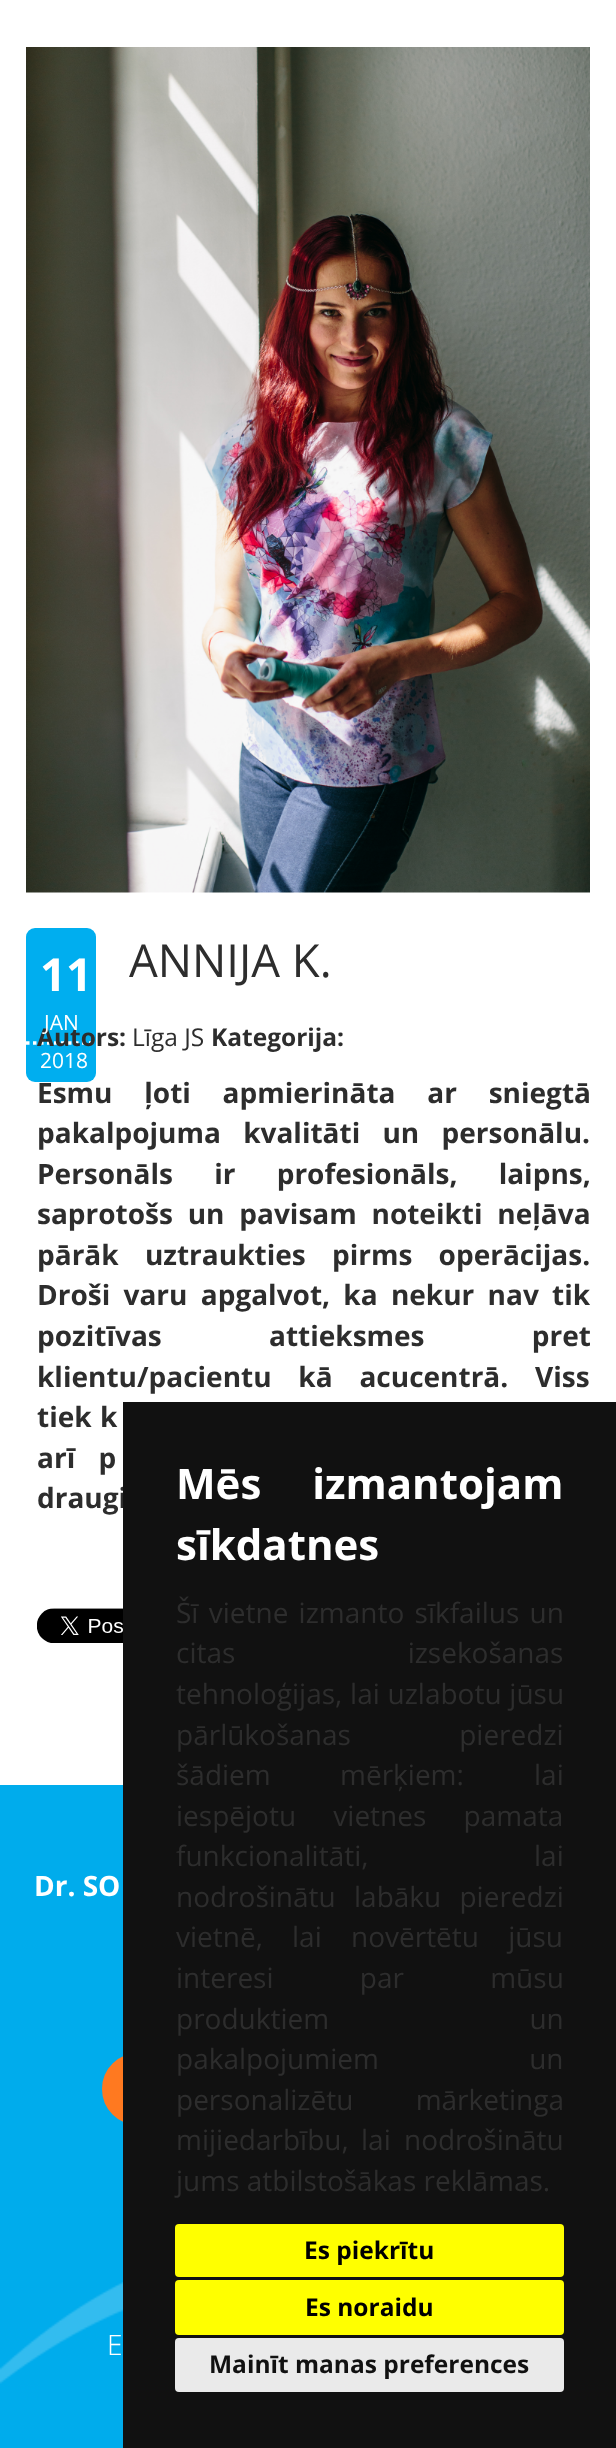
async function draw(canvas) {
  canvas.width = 616;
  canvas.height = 2448;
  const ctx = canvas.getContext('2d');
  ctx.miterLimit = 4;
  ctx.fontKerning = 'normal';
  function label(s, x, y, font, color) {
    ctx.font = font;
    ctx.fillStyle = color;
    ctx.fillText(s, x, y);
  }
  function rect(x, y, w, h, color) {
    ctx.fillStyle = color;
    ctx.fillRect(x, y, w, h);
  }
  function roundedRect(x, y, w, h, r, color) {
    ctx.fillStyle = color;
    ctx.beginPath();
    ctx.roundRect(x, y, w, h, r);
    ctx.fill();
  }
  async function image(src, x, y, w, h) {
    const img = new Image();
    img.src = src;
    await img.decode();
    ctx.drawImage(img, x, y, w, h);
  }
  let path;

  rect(0, 0, 616, 2448, '#fff');
  await image('assets/img1.png', 26, 47, 564, 846);
  label('ANNIJA K.', 129, 977, '45.5px Open Sans', '#2d2d2d');
  roundedRect(26, 928, 70, 154, 9, '#00aeef');
  ctx.save();
  ctx.beginPath();
  ctx.roundRect(26, 928, 70, 154, 9);
  ctx.clip();
  path = new Path2D('M26 1043H110');
  ctx.strokeStyle = '#fff';
  ctx.lineWidth = 3.5;
  ctx.setLineDash([3.5, 3.5]);
  ctx.stroke(path);
  ctx.restore();
  label('Autors:', 37, 1046, 'bold 24.5px Open Sans', '#2d2d2d');
  label('Līga JS', 132, 1046, '24.5px Open Sans', '#2d2d2d');
  label('Kategorija:', 211, 1046, 'bold 24.5px Open Sans', '#2d2d2d');
  ctx.wordSpacing = '24.5px';
  label('Esmu ļoti apmierināta ar sniegtā', 37, 1103, 'bold 28px Open Sans', '#2d2d2d');
  ctx.wordSpacing = '15px';
  label('pakalpojuma kvalitāti un personālu.', 37, 1143, 'bold 28px Open Sans', '#2d2d2d');
  ctx.wordSpacing = '34px';
  label('Personāls ir profesionāls, laipns,', 37, 1184, 'bold 28px Open Sans', '#2d2d2d');
  ctx.wordSpacing = '7.5px';
  label('saprotošs un pavisam noteikti neļāva', 37, 1224, 'bold 28px Open Sans', '#2d2d2d');
  ctx.wordSpacing = '19px';
  label('pārāk uztraukties pirms operācijas.', 37, 1265, 'bold 28px Open Sans', '#2d2d2d');
  ctx.wordSpacing = '6px';
  label('Droši varu apgalvot, ka nekur nav tik', 37, 1305, 'bold 28px Open Sans', '#2d2d2d');
  ctx.wordSpacing = '100px';
  label('pozitīvas attieksmes pret', 37, 1346, 'bold 28px Open Sans', '#2d2d2d');
  ctx.wordSpacing = '19.5px';
  label('klientu/pacientu kā acucentrā. Viss', 37, 1387, 'bold 28px Open Sans', '#2d2d2d');
  ctx.wordSpacing = '1px';
  label('tiek k', 37, 1427, 'bold 28px Open Sans', '#2d2d2d');
  ctx.wordSpacing = '16px';
  label('arī p', 37, 1468, 'bold 28px Open Sans', '#2d2d2d');
  ctx.wordSpacing = '0px';
  label('draugi', 37, 1508, 'bold 28px Open Sans', '#2d2d2d');
  await image('assets/img2.png', 37, 1608, 86, 35);
  label('11', 40, 991, 'bold 45.5px Open Sans', '#fff');
  label('JAN', 44, 1030, '21px Open Sans', '#fff');
  label('2018', 40, 1068, '21px Open Sans', '#fff');
  rect(0, 1785, 123, 663, '#00acec');
  await image('assets/img3.png', 0, 2282, 123, 102);
  label('Dr. SO', 34, 1896, 'bold 28px Open Sans', '#fff');
  ctx.fillStyle = '#ff7920';
  ctx.beginPath();
  ctx.roundRect(104, 2055, 409, 68, 34);
  ctx.fill();
  ctx.strokeStyle = '#ff7920';
  ctx.lineWidth = 4;
  ctx.stroke();
  label('E', 107, 2355, '300 28px Open Sans', '#fff');
  rect(123, 1402, 493, 1046, '#111');
  ctx.wordSpacing = '40px';
  label('Mēs izmantojam', 176, 1499, 'bold 42px Open Sans', '#fff');
  ctx.wordSpacing = '0px';
  label('sīkdatnes', 176, 1560, 'bold 42px Open Sans', '#fff');
  ctx.wordSpacing = '3px';
  label('Šī vietne izmanto sīkfailus un', 176, 1623, '28px Open Sans', '#2d2d2d');
  ctx.wordSpacing = '165px';
  label('citas izsekošanas', 176, 1663, '28px Open Sans', '#2d2d2d');
  ctx.wordSpacing = '0.5px';
  label('tehnoloģijas, lai uzlabotu jūsu', 176, 1704, '28px Open Sans', '#2d2d2d');
  ctx.wordSpacing = '101px';
  label('pārlūkošanas pieredzi', 176, 1745, '28px Open Sans', '#2d2d2d');
  ctx.wordSpacing = '62px';
  label('šādiem mērķiem:', 176, 1785, '28px Open Sans', '#2d2d2d');
  ctx.wordSpacing = '0px';
  label('lai', 534, 1785, '28px Open Sans', '#2d2d2d');
  ctx.wordSpacing = '30px';
  label('iespējotu vietnes pamata', 176, 1826, '28px Open Sans', '#2d2d2d');
  ctx.wordSpacing = '0px';
  label('funkcionalitāti,', 176, 1866, '28px Open Sans', '#2d2d2d');
  label('lai', 534, 1866, '28px Open Sans', '#2d2d2d');
  ctx.wordSpacing = '11px';
  label('nodrošinātu labāku pieredzi', 176, 1907, '28px Open Sans', '#2d2d2d');
  ctx.wordSpacing = '0px';
  label('vietnē,', 176, 1947, '28px Open Sans', '#2d2d2d');
  ctx.wordSpacing = '22px';
  label('lai novērtētu jūsu', 292, 1947, '28px Open Sans', '#2d2d2d');
  ctx.wordSpacing = '79px';
  label('interesi par mūsu', 176, 1988, '28px Open Sans', '#2d2d2d');
  ctx.wordSpacing = '193px';
  label('produktiem un', 176, 2029, '28px Open Sans', '#2d2d2d');
  ctx.wordSpacing = '143px';
  label('pakalpojumiem un', 176, 2069, '28px Open Sans', '#2d2d2d');
  ctx.wordSpacing = '55px';
  label('personalizētu mārketinga', 176, 2110, '28px Open Sans', '#2d2d2d');
  ctx.wordSpacing = '0px';
  label('mijiedarbību,', 176, 2150, '28px Open Sans', '#2d2d2d');
  ctx.wordSpacing = '6px';
  label('lai nodrošinātu', 361, 2150, '28px Open Sans', '#2d2d2d');
  ctx.wordSpacing = '0px';
  label('jums atbilstošākas reklāmas.', 176, 2191, '28px Open Sans', '#2d2d2d');
  roundedRect(175, 2224, 389, 53, 4, '#ff0');
  label('Es piekrītu', 304, 2259, 'bold 24.5px Open Sans', '#000');
  roundedRect(175, 2280, 389, 55, 4, '#ff0');
  label('Es noraidu', 305, 2316, 'bold 24.5px Open Sans', '#000');
  roundedRect(175, 2338, 389, 54, 4, '#eaeaea');
  label('Mainīt manas preferences', 209, 2373, 'bold 24.5px Open Sans', '#111');
}

draw(document.querySelector('canvas'));
